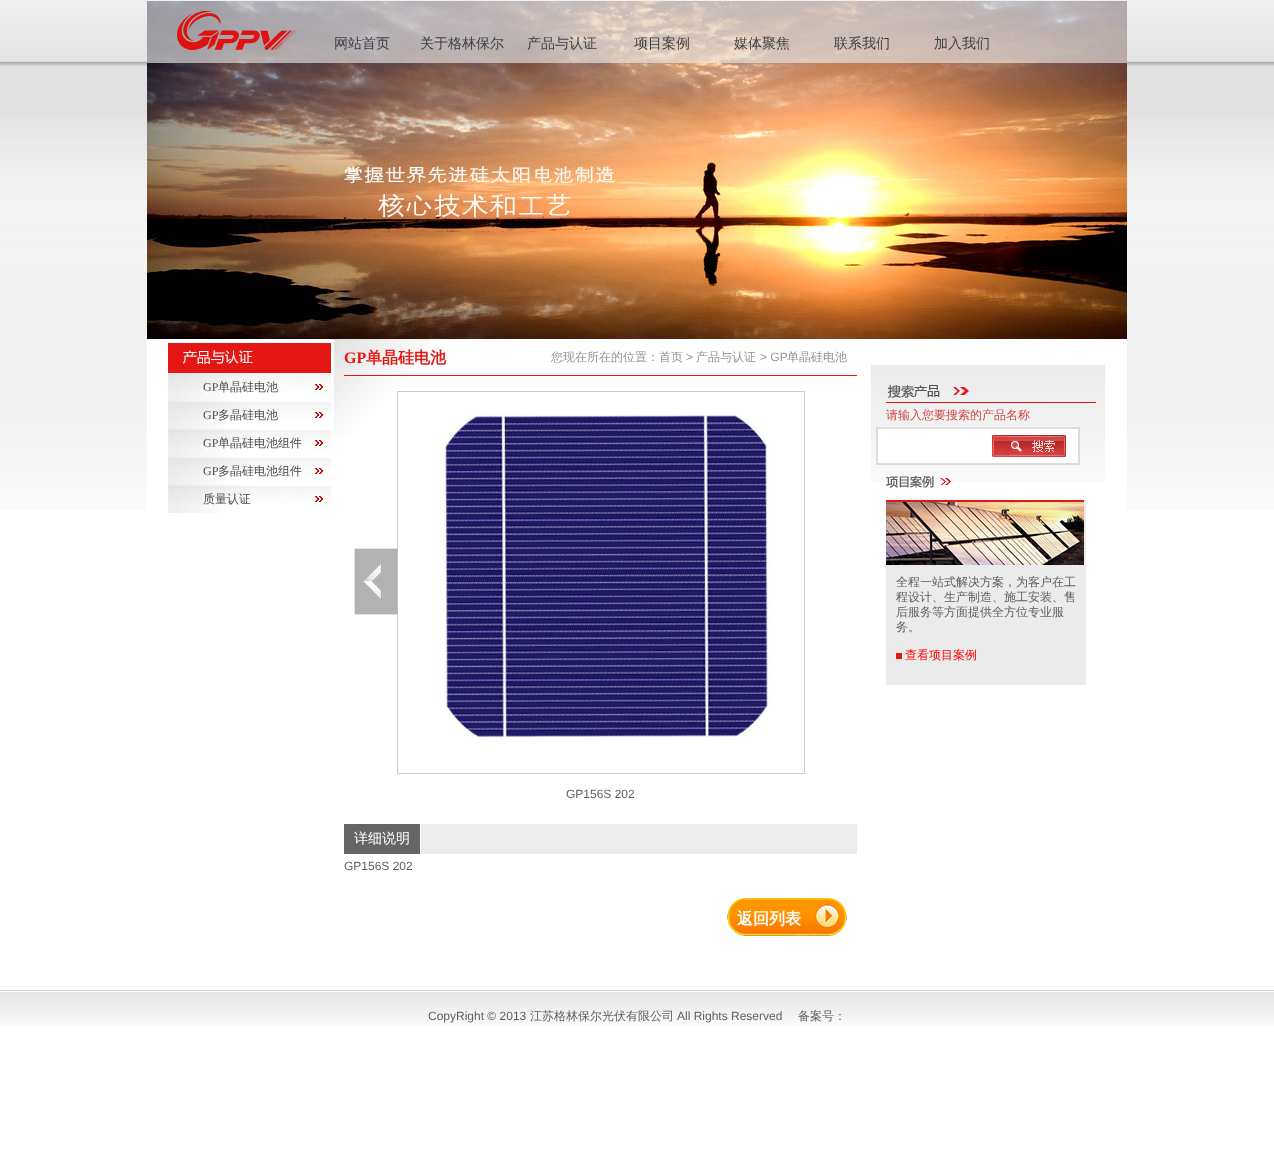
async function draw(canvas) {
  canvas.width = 1274;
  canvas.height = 1169;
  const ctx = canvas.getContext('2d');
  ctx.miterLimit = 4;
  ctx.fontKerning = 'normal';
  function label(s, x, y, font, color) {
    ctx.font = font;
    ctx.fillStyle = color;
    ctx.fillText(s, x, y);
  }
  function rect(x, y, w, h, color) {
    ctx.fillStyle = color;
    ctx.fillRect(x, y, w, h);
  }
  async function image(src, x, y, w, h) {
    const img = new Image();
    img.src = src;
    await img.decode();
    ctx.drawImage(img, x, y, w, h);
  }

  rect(0, 0, 1274, 1169, '#fff');
  await image('assets/img1.png', 0, 0, 1274, 510);
  await image('assets/img2.png', 147, 0, 980, 340);
  rect(147, 0, 980, 63, '#e6e6e6a6');
  await image('assets/img3.png', 177, 11, 120, 39);
  label('网站首页', 334, 48, '500 14px WenQuanYi Zen Hei', '#404142');
  label('关于格林保尔', 420, 48, '500 14px WenQuanYi Zen Hei', '#404142');
  label('产品与认证', 527, 48, '500 14px WenQuanYi Zen Hei', '#404142');
  label('项目案例', 634, 48, '500 14px WenQuanYi Zen Hei', '#404142');
  label('媒体聚焦', 734, 48, '500 14px WenQuanYi Zen Hei', '#404142');
  label('联系我们', 834, 48, '500 14px WenQuanYi Zen Hei', '#404142');
  label('加入我们', 934, 48, '500 14px WenQuanYi Zen Hei', '#404142');
  rect(147, 340, 980, 170, '#fff');
  await image('assets/img4.png', 168, 343, 163, 30);
  await image('assets/img5.png', 168, 373, 163, 28);
  label('GP', 203, 391, '12px Liberation Serif', '#4c4c4c');
  label('单晶硅电池', 218, 391, '500 12px WenQuanYi Zen Hei', '#4c4c4c');
  await image('assets/img5.png', 168, 401, 163, 28);
  label('GP', 203, 419, '12px Liberation Serif', '#4c4c4c');
  label('多晶硅电池', 218, 419, '500 12px WenQuanYi Zen Hei', '#4c4c4c');
  await image('assets/img5.png', 168, 429, 163, 28);
  label('GP', 203, 447, '12px Liberation Serif', '#4c4c4c');
  label('单晶硅电池组件', 218, 447, '500 12px WenQuanYi Zen Hei', '#4c4c4c');
  await image('assets/img5.png', 168, 457, 163, 28);
  label('GP', 203, 475, '12px Liberation Serif', '#4c4c4c');
  label('多晶硅电池组件', 218, 475, '500 12px WenQuanYi Zen Hei', '#4c4c4c');
  await image('assets/img5.png', 168, 485, 163, 28);
  label('质量认证', 203, 503, '500 12px WenQuanYi Zen Hei', '#4c4c4c');
  await image('assets/img6.png', 333, 340, 98, 97);
  rect(344, 375, 513, 1, '#e41714');
  label('GP', 344, 363, 'bold 16px Liberation Serif', '#e41714');
  label('单晶硅电池', 366, 363, 'bold 16px WenQuanYi Zen Hei', '#e41714');
  label('您现在所在的位置：首页', 551, 361, '500 12px WenQuanYi Zen Hei', '#939393');
  label('>', 686, 361, '12px Liberation Sans', '#939393');
  label('产品与认证', 696, 361, '500 12px WenQuanYi Zen Hei', '#939393');
  label('> GP', 760, 361, '12px Liberation Sans', '#939393');
  label('单晶硅电池', 787, 361, '500 12px WenQuanYi Zen Hei', '#939393');
  ctx.strokeStyle = '#ccc';
  ctx.strokeRect(397.5, 391.5, 407, 382);
  await image('assets/img7.png', 354, 548, 44, 67);
  await image('assets/img8.png', 445, 414, 327, 326);
  label('GP156S 202', 566, 798, '12px Liberation Sans', '#605e5e');
  rect(421, 824, 436, 30, '#ececec');
  rect(344, 824, 76, 30, '#656565');
  label('详细说明', 354, 843, '500 14px WenQuanYi Zen Hei', '#fff');
  label('GP156S 202', 344, 870, '12px Liberation Sans', '#605e5e');
  await image('assets/img9.png', 727, 898, 120, 40);
  label('返回列表', 737, 924, 'bold 16px WenQuanYi Zen Hei', '#fff');
  await image('assets/img10.png', 871, 365, 234, 118);
  rect(886, 402, 210, 1, '#e41714');
  await image('assets/img11.png', 887, 385, 82, 13);
  label('请输入您要搜索的产品名称', 886, 419, '500 12px WenQuanYi Zen Hei', '#cc4b45');
  ctx.fillStyle = '#fff';
  ctx.beginPath();
  ctx.rect(877, 428, 202, 36);
  ctx.fill();
  ctx.strokeStyle = '#ddd';
  ctx.lineWidth = 2;
  ctx.stroke();
  await image('assets/img12.png', 992, 435, 74, 22);
  await image('assets/img13.png', 886, 476, 65, 12);
  rect(886, 500, 200, 185, '#ebebeb');
  await image('assets/img14.png', 886, 500, 198, 65);
  label('全程一站式解决方案，为客户在工', 896, 586, '500 12px WenQuanYi Zen Hei', '#605e5e');
  label('程设计、生产制造、施工安装、售', 896, 601, '500 12px WenQuanYi Zen Hei', '#605e5e');
  label('后服务等方面提供全方位专业服', 896, 616, '500 12px WenQuanYi Zen Hei', '#605e5e');
  label('务。', 896, 631, '500 12px WenQuanYi Zen Hei', '#605e5e');
  rect(896, 653, 6, 6, '#e41714');
  label('查看项目案例', 905, 659, '500 12px WenQuanYi Zen Hei', '#f00');
  await image('assets/img15.png', 0, 990, 1274, 36);
  label('CopyRight © 2013', 428, 1020, '12px Liberation Sans', '#605e5e');
  label('江苏格林保尔光伏有限公司', 530, 1020, '500 12px WenQuanYi Zen Hei', '#605e5e');
  label('All Rights Reserved', 677, 1020, '12px Liberation Sans', '#605e5e');
  label('备案号：', 798, 1020, '500 12px WenQuanYi Zen Hei', '#605e5e');
}

draw(document.querySelector('canvas'));
